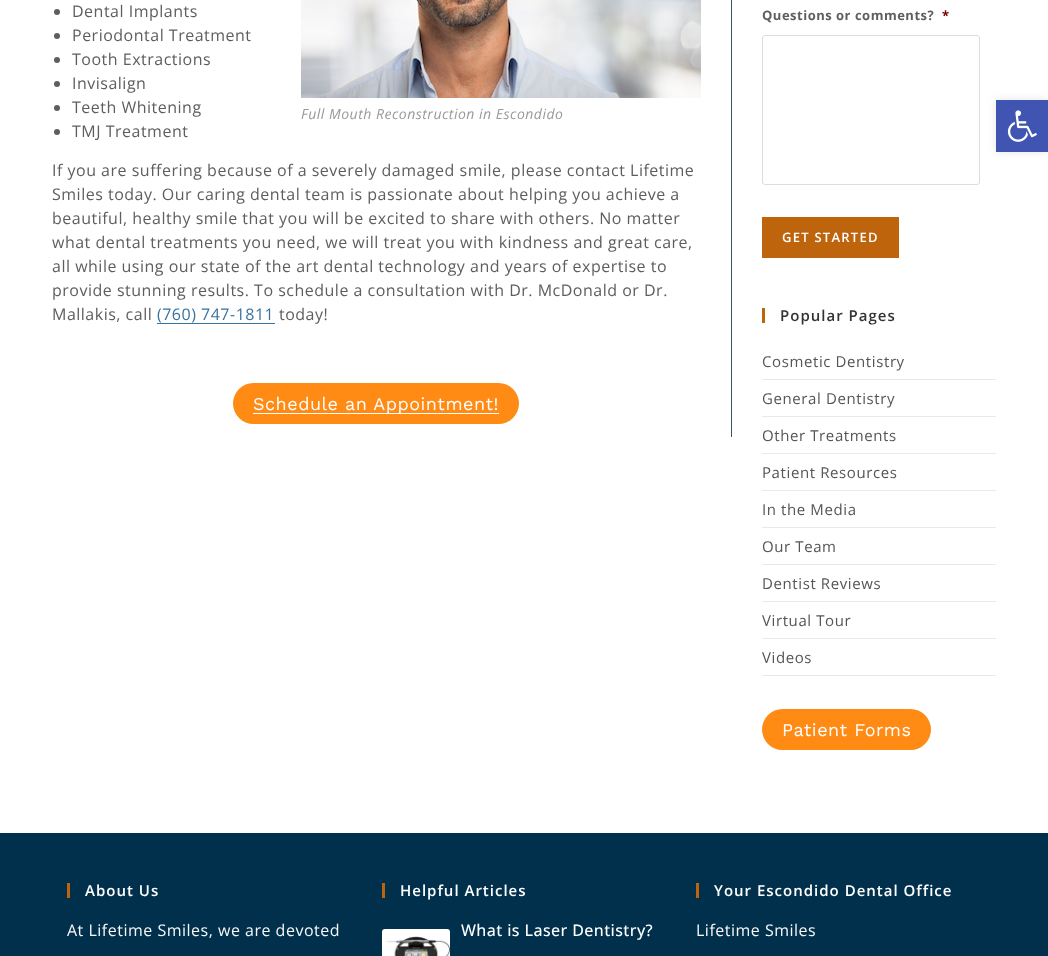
async function draw(canvas) {
  canvas.width = 1048;
  canvas.height = 956;
  const ctx = canvas.getContext('2d');
  ctx.miterLimit = 4;
  ctx.fontKerning = 'normal';
  function label(s, x, y, font, color) {
    ctx.font = font;
    ctx.fillStyle = color;
    ctx.fillText(s, x, y);
  }
  function rect(x, y, w, h, color) {
    ctx.fillStyle = color;
    ctx.fillRect(x, y, w, h);
  }
  function roundedRect(x, y, w, h, r, color) {
    ctx.fillStyle = color;
    ctx.beginPath();
    ctx.roundRect(x, y, w, h, r);
    ctx.fill();
  }
  async function image(src, x, y, w, h) {
    const img = new Image();
    img.src = src;
    await img.decode();
    ctx.drawImage(img, x, y, w, h);
  }

  rect(0, 0, 1048, 956, '#fff');
  rect(731, 0, 1, 437, '#3a5861');
  ctx.fillStyle = '#5e5e5e';
  ctx.beginPath();
  ctx.arc(57, 12, 3, 0, 2 * Math.PI);
  ctx.fill();
  ctx.letterSpacing = '0.5px';
  label('Dental Implants', 72, 17, '16px Open Sans', '#5e5e5e');
  ctx.beginPath();
  ctx.arc(57, 36, 3, 0, 2 * Math.PI);
  ctx.fill();
  label('Periodontal Treatment', 72, 41, '16px Open Sans', '#5e5e5e');
  ctx.beginPath();
  ctx.arc(57, 60, 3, 0, 2 * Math.PI);
  ctx.fill();
  label('Tooth Extractions', 72, 65, '16px Open Sans', '#5e5e5e');
  ctx.beginPath();
  ctx.arc(57, 84, 3, 0, 2 * Math.PI);
  ctx.fill();
  label('Invisalign', 72, 89, '16px Open Sans', '#5e5e5e');
  ctx.beginPath();
  ctx.arc(57, 108, 3, 0, 2 * Math.PI);
  ctx.fill();
  label('Teeth Whitening', 72, 113, '16px Open Sans', '#5e5e5e');
  ctx.beginPath();
  ctx.arc(57, 132, 3, 0, 2 * Math.PI);
  ctx.fill();
  label('TMJ Treatment', 72, 137, '16px Open Sans', '#5e5e5e');
  await image('assets/img1.png', 301, 0, 400, 98);
  label('Full Mouth Reconstruction in Escondido', 301, 119, 'italic 14px Open Sans', '#999');
  label('If you are suffering because of a severely damaged smile, please contact Lifetime', 52, 176, '16px Open Sans', '#5e5e5e');
  label('Smiles today. Our caring dental team is passionate about helping you achieve a', 52, 200, '16px Open Sans', '#5e5e5e');
  label('beautiful, healthy smile that you will be excited to share with others. No matter', 52, 224, '16px Open Sans', '#5e5e5e');
  label('what dental treatments you need, we will treat you with kindness and great care,', 52, 248, '16px Open Sans', '#5e5e5e');
  label('all while using our state of the art dental technology and years of expertise to', 52, 272, '16px Open Sans', '#5e5e5e');
  label('provide stunning results. To schedule a consultation with Dr. McDonald or Dr.', 52, 296, '16px Open Sans', '#5e5e5e');
  label('Mallakis, call', 52, 320, '16px Open Sans', '#5e5e5e');
  label('(760) 747-1811', 157, 320, '16px Open Sans', '#37739e');
  rect(157, 323, 118, 1, '#37739e');
  label('today!', 279, 320, '16px Open Sans', '#5e5e5e');
  roundedRect(233, 383, 286, 41, 20.5, '#ff8a14');
  rect(253, 413, 246, 1, '#fff');
  label('Schedule an Appointment!', 253, 410, '18px Work Sans', '#fff');
  label('Questions or comments?', 762, 20, 'bold 13px Open Sans', '#5e5e5e');
  label('*', 942, 20, 'bold 13px Open Sans', '#790000');
  ctx.beginPath();
  ctx.roundRect(762.5, 35.5, 217, 149, 2.5);
  ctx.strokeStyle = '#ddd';
  ctx.stroke();
  rect(762, 217, 137, 41, '#bd640c');
  ctx.letterSpacing = '1.25px';
  label('GET STARTED', 782, 242, '600 13px Open Sans', '#fff');
  rect(762, 308, 3, 15, '#bd640c');
  ctx.letterSpacing = '1px';
  label('Popular Pages', 780, 321, '600 15px Open Sans', '#333');
  rect(762, 379, 234, 1, '#e9e9e9');
  ctx.letterSpacing = '0.6px';
  label('Cosmetic Dentistry', 762, 367, '15px Open Sans', '#555');
  rect(762, 416, 234, 1, '#e9e9e9');
  label('General Dentistry', 762, 404, '15px Open Sans', '#555');
  rect(762, 453, 234, 1, '#e9e9e9');
  label('Other Treatments', 762, 441, '15px Open Sans', '#555');
  rect(762, 490, 234, 1, '#e9e9e9');
  label('Patient Resources', 762, 478, '15px Open Sans', '#555');
  rect(762, 527, 234, 1, '#e9e9e9');
  label('In the Media', 762, 515, '15px Open Sans', '#555');
  rect(762, 564, 234, 1, '#e9e9e9');
  label('Our Team', 762, 552, '15px Open Sans', '#555');
  rect(762, 601, 234, 1, '#e9e9e9');
  label('Dentist Reviews', 762, 589, '15px Open Sans', '#555');
  rect(762, 638, 234, 1, '#e9e9e9');
  label('Virtual Tour', 762, 626, '15px Open Sans', '#555');
  rect(762, 675, 234, 1, '#e9e9e9');
  label('Videos', 762, 663, '15px Open Sans', '#555');
  roundedRect(762, 709, 169, 41, 20.5, '#ff8a14');
  ctx.letterSpacing = '0.5px';
  label('Patient Forms', 782, 736, '18px Work Sans', '#fff');
  rect(0, 833, 1048, 123, '#00304c');
  rect(67, 883, 3, 15, '#bd640c');
  ctx.letterSpacing = '1px';
  label('About Us', 85, 896, '600 15px Open Sans', '#fff');
  ctx.letterSpacing = '0.5px';
  label('At Lifetime Smiles, we are devoted', 67, 936, '16px Open Sans', '#f7f7f7');
  rect(382, 883, 3, 15, '#bd640c');
  ctx.letterSpacing = '1px';
  label('Helpful Articles', 400, 896, '600 15px Open Sans', '#fff');
  await image('assets/img2.png', 382, 929, 68, 27);
  ctx.letterSpacing = '0.4px';
  label('What is Laser Dentistry?', 461, 936, '500 16px Open Sans', '#fff');
  rect(696, 883, 3, 15, '#bd640c');
  ctx.letterSpacing = '1px';
  label('Your Escondido Dental Office', 714, 896, '600 15px Open Sans', '#fff');
  ctx.letterSpacing = '0.5px';
  label('Lifetime Smiles', 696, 936, '16px Open Sans', '#f7f7f7');
  ctx.fillStyle = '#0000001a';
  ctx.filter = 'blur(5px)';
  ctx.beginPath();
  ctx.rect(996, 100, 52, 52);
  ctx.fill();
  ctx.filter = 'none';
  rect(996, 100, 52, 52, '#4054b2');
  await image('assets/img3.png', 1007, 110, 30, 32);
}

draw(document.querySelector('canvas'));
